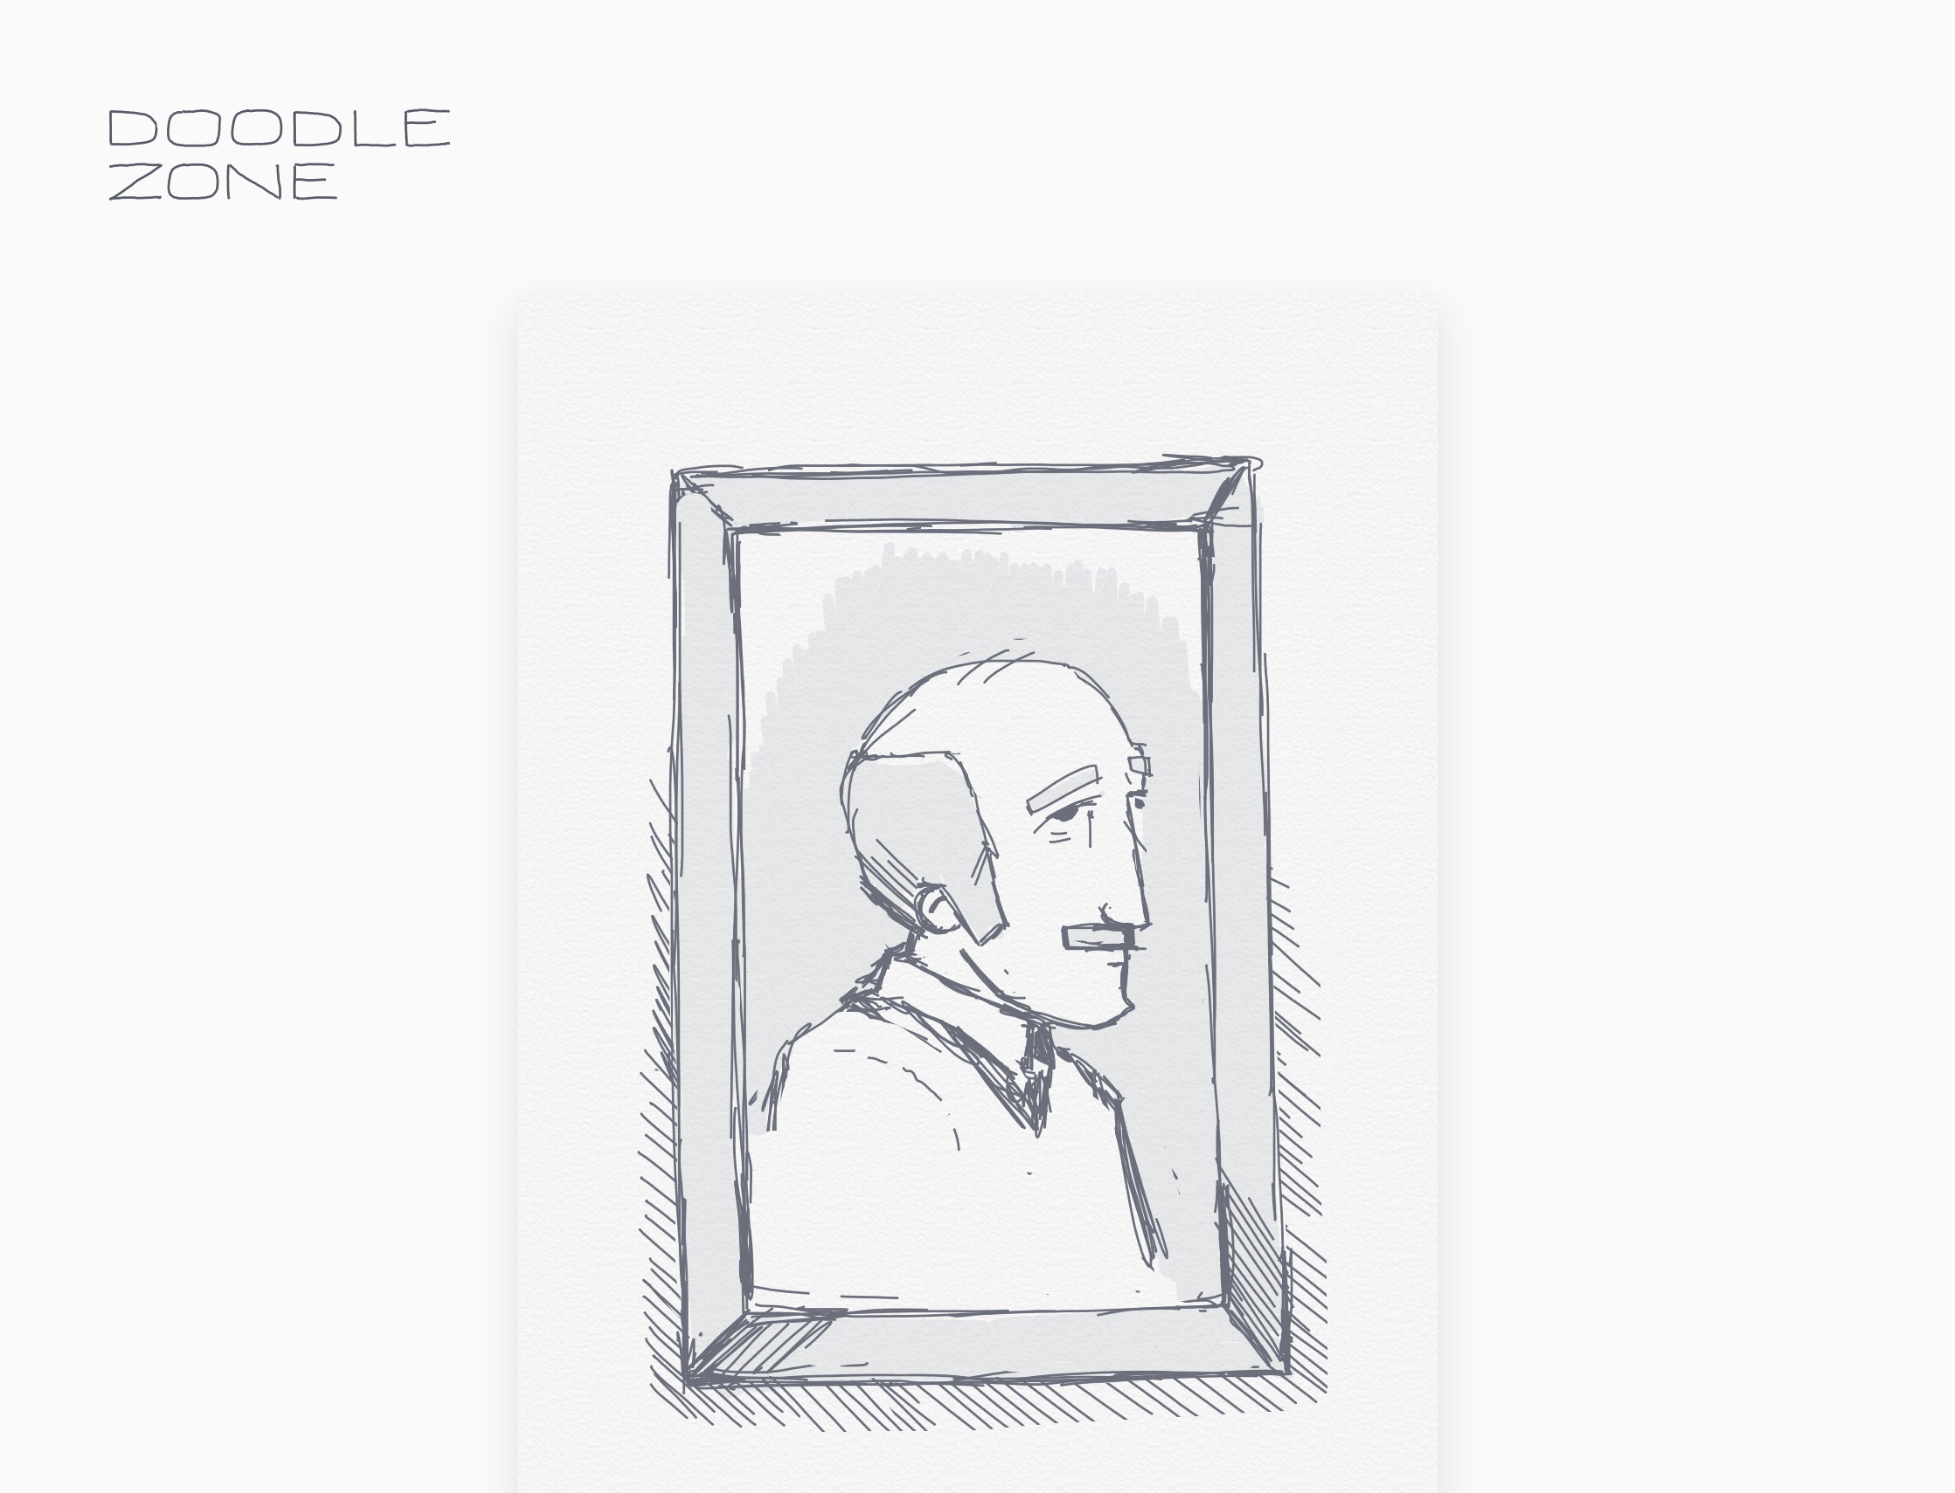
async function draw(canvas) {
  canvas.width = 1955;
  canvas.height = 1493;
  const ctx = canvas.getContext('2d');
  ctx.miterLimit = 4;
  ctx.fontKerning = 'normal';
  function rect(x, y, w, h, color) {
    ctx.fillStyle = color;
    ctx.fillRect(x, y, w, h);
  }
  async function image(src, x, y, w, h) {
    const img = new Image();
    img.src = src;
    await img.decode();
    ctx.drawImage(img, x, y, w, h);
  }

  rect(0, 0, 1955, 1493, '#fafafa');
  await image('assets/img1.png', 108, 108, 342, 93);
  ctx.fillStyle = '#0000001a';
  ctx.filter = 'blur(22px)';
  ctx.beginPath();
  ctx.rect(518, 310, 921, 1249);
  ctx.fill();
  ctx.filter = 'none';
  await image('assets/img2.png', 518, 292, 920, 1201);
}

draw(document.querySelector('canvas'));
